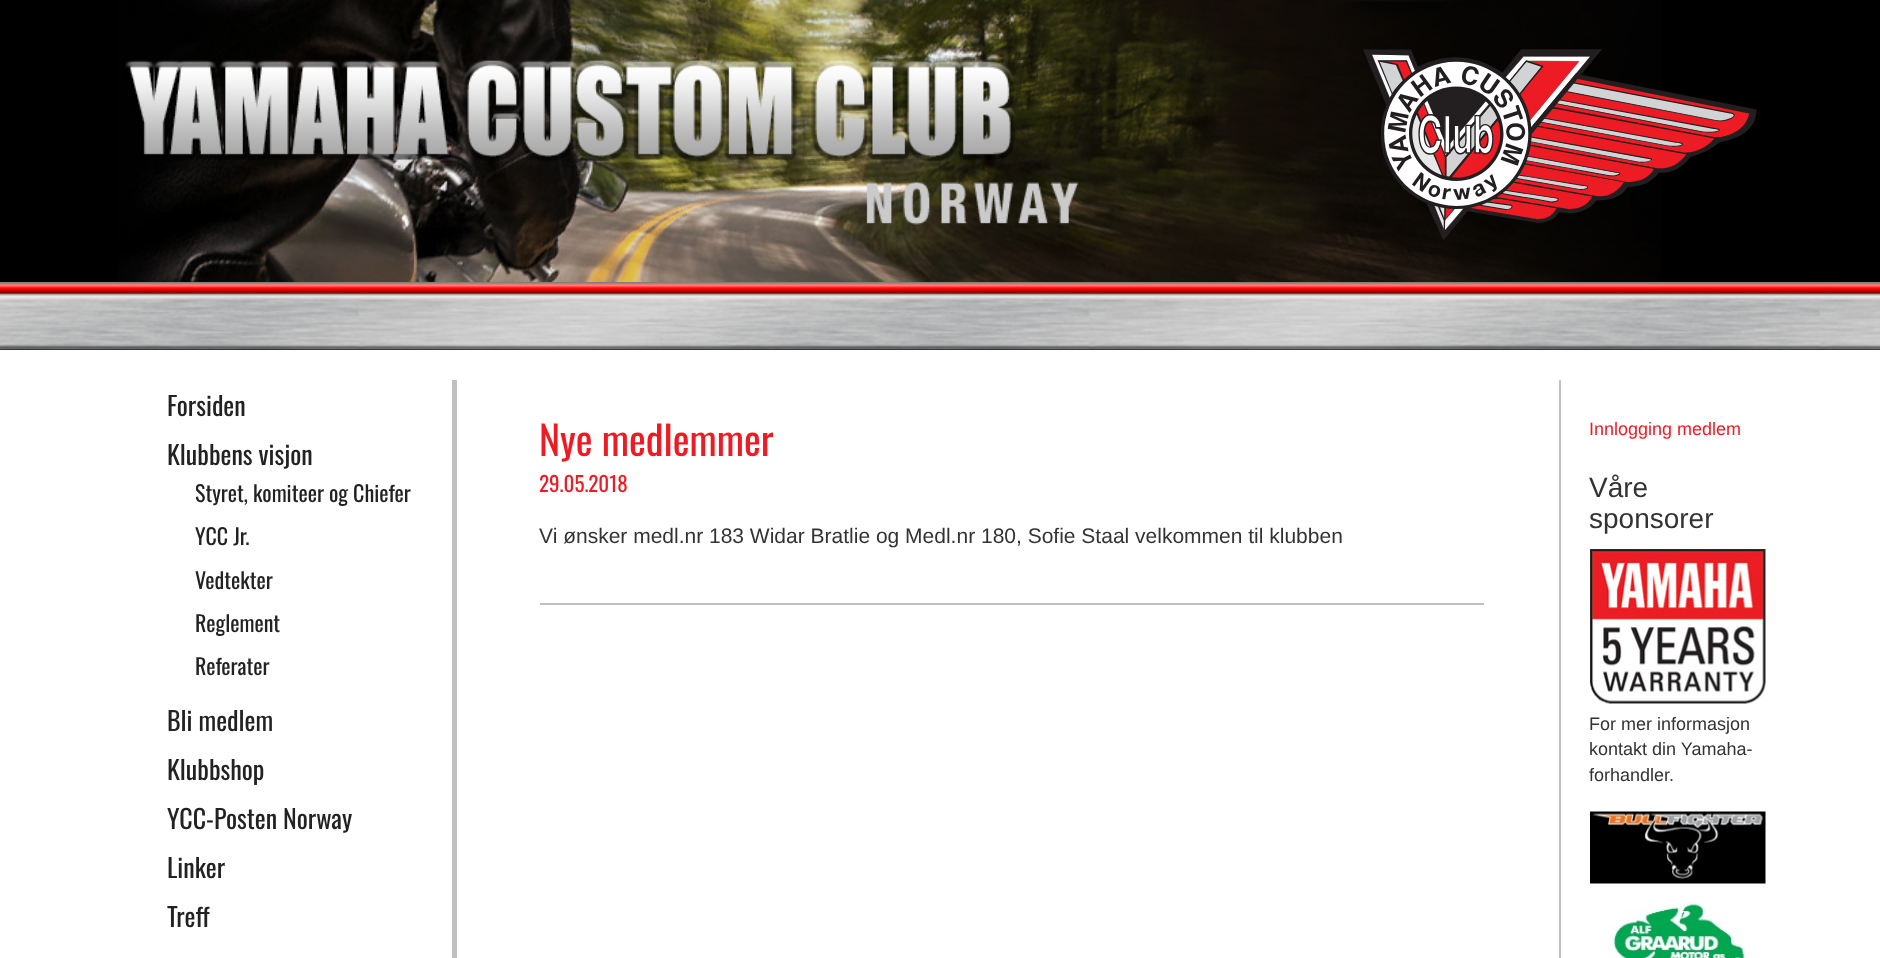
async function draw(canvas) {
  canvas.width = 1880;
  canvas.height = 958;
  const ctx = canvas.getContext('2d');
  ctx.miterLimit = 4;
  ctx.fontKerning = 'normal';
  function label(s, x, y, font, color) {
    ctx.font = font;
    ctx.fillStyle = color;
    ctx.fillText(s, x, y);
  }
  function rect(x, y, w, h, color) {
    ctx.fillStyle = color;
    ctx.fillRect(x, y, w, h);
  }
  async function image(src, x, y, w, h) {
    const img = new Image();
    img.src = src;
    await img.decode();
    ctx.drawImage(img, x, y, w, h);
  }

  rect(0, 0, 1880, 958, '#fff');
  rect(0, 0, 1880, 350, '#000');
  await image('assets/img1.png', 117, 0, 1544, 282);
  await image('assets/img2.png', 125, 60, 954, 165);
  await image('assets/img3.png', 1363, 49, 394, 192);
  await image('assets/img4.png', 0, 282, 1880, 68);
  rect(452, 380, 5, 578, '#bfbfbf');
  label('Forsiden', 167, 416, '26px Oswald', '#222');
  label('Klubbens visjon', 167, 465, '26px Oswald', '#222');
  label('Styret, komiteer og Chiefer', 195, 502, '22px Oswald', '#222');
  label('YCC Jr.', 195, 545, '22px Oswald', '#222');
  label('Vedtekter', 195, 589, '22px Oswald', '#222');
  label('Reglement', 195, 632, '22px Oswald', '#222');
  label('Referater', 195, 675, '22px Oswald', '#222');
  label('Bli medlem', 167, 731, '26px Oswald', '#222');
  label('Klubbshop', 167, 780, '26px Oswald', '#222');
  label('YCC-Posten Norway', 167, 829, '26px Oswald', '#222');
  label('Linker', 167, 878, '26px Oswald', '#222');
  label('Treff', 167, 927, '26px Oswald', '#222');
  rect(540, 603, 944, 2, '#bfbfbf');
  label('Nye medlemmer', 539, 456, '40px Oswald', '#ed1c24');
  label('29.05.2018', 539, 492, '21px Oswald', '#ed1c24');
  label('Vi ønsker medl.nr 183 Widar Bratlie og Medl.nr 180, Sofie Staal velkommen til klubben', 539, 543, '21px Liberation Sans', '#333');
  rect(1559, 380, 2, 578, '#bfbfbf');
  label('Innlogging medlem', 1589, 435, '18px Liberation Sans', '#ed1c24');
  label('Våre', 1589, 497, '28px Liberation Sans', '#333');
  label('sponsorer', 1589, 528, '28px Liberation Sans', '#333');
  await image('assets/img5.png', 1590, 549, 176, 155);
  label('For mer informasjon', 1589, 730, '18px Liberation Sans', '#333');
  label('kontakt din Yamaha-', 1589, 755, '18px Liberation Sans', '#333');
  label('forhandler.', 1589, 781, '18px Liberation Sans', '#333');
  await image('assets/img6.png', 1590, 811, 176, 73);
  await image('assets/img7.png', 1607, 902, 139, 56);
}

draw(document.querySelector('canvas'));
